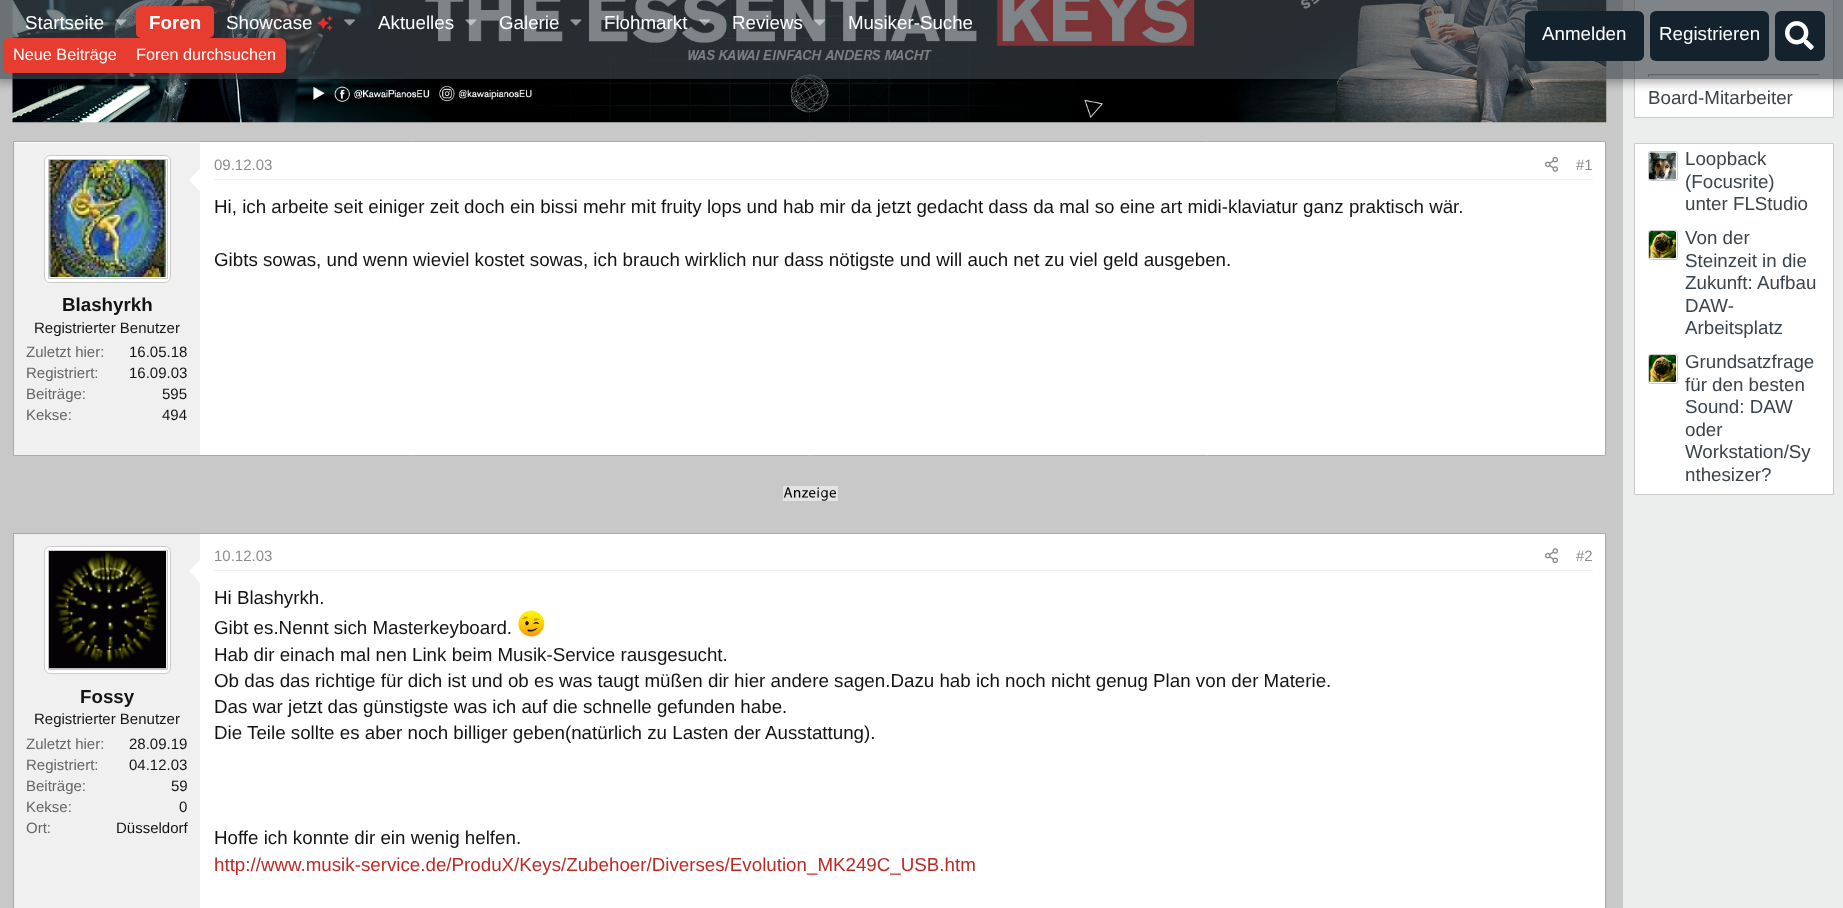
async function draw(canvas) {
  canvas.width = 1843;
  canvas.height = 908;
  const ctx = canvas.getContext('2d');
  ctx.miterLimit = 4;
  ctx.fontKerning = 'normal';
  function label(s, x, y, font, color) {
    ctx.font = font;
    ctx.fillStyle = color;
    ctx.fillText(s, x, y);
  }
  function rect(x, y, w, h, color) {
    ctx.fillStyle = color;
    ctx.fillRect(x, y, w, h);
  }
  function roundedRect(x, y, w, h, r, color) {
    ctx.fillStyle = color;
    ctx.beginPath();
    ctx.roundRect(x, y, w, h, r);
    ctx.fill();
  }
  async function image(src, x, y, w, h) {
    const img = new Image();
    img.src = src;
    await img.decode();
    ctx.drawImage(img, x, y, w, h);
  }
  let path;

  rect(0, 0, 1843, 908, '#c8c8c8');
  rect(1623, 0, 220, 908, '#eceded');
  await image('assets/img9.png', 12, 0, 1595, 123);
  ctx.fillStyle = '#fff';
  ctx.beginPath();
  ctx.rect(1634.5, -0.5, 199, 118);
  ctx.fill();
  ctx.strokeStyle = '#ccc';
  ctx.stroke();
  rect(1648, 74, 172, 1, '#9f9f9f');
  rect(1819, 74, 1, 3, '#eee');
  rect(1648, 75, 172, 1, '#eee');
  rect(1648, 74, 1, 3, '#9f9f9f');
  ctx.save();
  path = new Path2D('M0 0H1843V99H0ZM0 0H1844V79H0Z');
  ctx.clip(path, 'evenodd');
  ctx.fillStyle = '#0000004d';
  ctx.filter = 'blur(5px)';
  ctx.beginPath();
  ctx.rect(-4, -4, 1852, 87);
  ctx.fill();
  ctx.filter = 'none';
  ctx.restore();
  rect(0, 0, 1843, 38, '#3b444ba8');
  label('Startseite', 25, 29, '18.75px Liberation Sans', '#fff');
  await image('assets/img1.png', 115, 19, 12, 7);
  roundedRect(136, 6, 78, 32, 5, '#e63d30');
  label('Foren', 149, 29, 'bold 18.75px Liberation Sans', '#fff');
  label('Showcase', 226, 29, '18.75px Liberation Sans', '#fff');
  await image('assets/img2.png', 317, 15, 16, 16);
  await image('assets/img3.png', 344, 19, 11, 7);
  label('Aktuelles', 378, 29, '18.75px Liberation Sans', '#fff');
  await image('assets/img4.png', 465, 19, 12, 7);
  label('Galerie', 499, 29, '18.75px Liberation Sans', '#fff');
  await image('assets/img5.png', 570, 19, 12, 7);
  label('Flohmarkt', 604, 29, '18.75px Liberation Sans', '#fff');
  await image('assets/img6.png', 699, 19, 11, 7);
  label('Reviews', 732, 29, '18.75px Liberation Sans', '#fff');
  await image('assets/img7.png', 814, 19, 11, 7);
  label('Musiker-Suche', 848, 29, '18.75px Liberation Sans', '#fff');
  rect(0, 38, 1843, 41, '#3b444ba8');
  roundedRect(1525, 11, 119, 50, 6, '#14222d');
  label('Anmelden', 1542, 40, '18.75px Liberation Sans', '#fff');
  roundedRect(1650, 11, 119, 50, 6, '#14222d');
  rect(1650, 15, 1, 44, '#14141426');
  label('Registrieren', 1659, 40, '18.75px Liberation Sans', '#fff');
  roundedRect(1775, 11, 50, 50, 6, '#14222d');
  await image('assets/img8.png', 1785, 21, 29, 29);
  ctx.fillStyle = '#e63d30';
  ctx.beginPath();
  ctx.roundRect(3, 38, 123, 35, [6, 0, 0, 6]);
  ctx.fill();
  label('Neue Beiträge', 13, 60, '16.25px Liberation Sans', '#fff');
  ctx.fillStyle = '#e63d30';
  ctx.beginPath();
  ctx.roundRect(126, 38, 160, 35, [0, 6, 6, 0]);
  ctx.fill();
  label('Foren durchsuchen', 136, 60, '16.25px Liberation Sans', '#fff');
  ctx.beginPath();
  ctx.rect(13.5, 141.5, 1592, 314);
  ctx.fill();
  ctx.strokeStyle = '#aaa';
  ctx.stroke();
  rect(214, 179, 1379, 1, '#f0f0f0');
  label('09.12.03', 214, 170, '15px Liberation Sans', '#8c8c8c');
  await image('assets/img10.png', 1545, 156, 14, 16);
  label('#1', 1576, 170, '15px Liberation Sans', '#8c8c8c');
  label('Hi, ich arbeite seit einiger zeit doch ein bissi mehr mit fruity lops und hab mir da jetzt gedacht dass da mal so eine art midi-klaviatur ganz praktisch wär.', 214, 213, '18.75px Liberation Sans', '#141414');
  label('Gibts sowas, und wenn wieviel kostet sowas, ich brauch wirklich nur dass nötigste und will auch net zu viel geld ausgeben.', 214, 266, '18.75px Liberation Sans', '#141414');
  rect(14, 143, 186, 312, '#f0f0f0');
  ctx.fillStyle = '#fff';
  ctx.beginPath();
  ctx.roundRect(44.5, 155.5, 126, 127, 5.5);
  ctx.fill();
  ctx.strokeStyle = '#ccc';
  ctx.stroke();
  ctx.strokeRect(48.5, 159.5, 119, 119);
  await image('assets/img11.png', 48, 159, 119, 119);
  path = new Path2D('M201 167.5V192.5L189 180Z');
  ctx.fill(path);
  label('Blashyrkh', 62, 311, 'bold 18.75px Liberation Sans', '#141414');
  label('Registrierter Benutzer', 34, 333, '15px Liberation Sans', '#141414');
  label('Zuletzt hier:', 26, 357, '15px Liberation Sans', '#666');
  label('16.05.18', 129, 357, '15px Liberation Sans', '#141414');
  label('Registriert:', 26, 378, '15px Liberation Sans', '#666');
  label('16.09.03', 129, 378, '15px Liberation Sans', '#141414');
  label('Beiträge:', 26, 399, '15px Liberation Sans', '#666');
  label('595', 162, 399, '15px Liberation Sans', '#141414');
  label('Kekse:', 26, 420, '15px Liberation Sans', '#666');
  label('494', 162, 420, '15px Liberation Sans', '#141414');
  await image('assets/img12.png', 783, 486, 55, 15);
  rect(201, 534, 1404, 374, '#fff');
  ctx.strokeStyle = '#aaa';
  ctx.strokeRect(13.5, 533.5, 1592, 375);
  rect(14, 534, 186, 374, '#f0f0f0');
  rect(200, 534, 1, 374, '#fff');
  ctx.beginPath();
  ctx.roundRect(44.5, 546.5, 126, 127, 5.5);
  ctx.fill();
  ctx.strokeStyle = '#ccc';
  ctx.stroke();
  ctx.strokeRect(48.5, 550.5, 119, 119);
  await image('assets/img13.png', 48, 551, 119, 118);
  path = new Path2D('M201 559V584L189 571Z');
  ctx.fill(path);
  label('Fossy', 80, 703, 'bold 18.75px Liberation Sans', '#141414');
  label('Registrierter Benutzer', 34, 724, '15px Liberation Sans', '#141414');
  label('Zuletzt hier:', 26, 749, '15px Liberation Sans', '#666');
  label('28.09.19', 129, 749, '15px Liberation Sans', '#141414');
  label('Registriert:', 26, 770, '15px Liberation Sans', '#666');
  label('04.12.03', 129, 770, '15px Liberation Sans', '#141414');
  label('Beiträge:', 26, 791, '15px Liberation Sans', '#666');
  label('59', 171, 791, '15px Liberation Sans', '#141414');
  label('Kekse:', 26, 812, '15px Liberation Sans', '#666');
  label('0', 179, 812, '15px Liberation Sans', '#141414');
  label('Ort:', 26, 833, '15px Liberation Sans', '#666');
  label('Düsseldorf', 116, 833, '15px Liberation Sans', '#141414');
  rect(214, 570, 1379, 1, '#f0f0f0');
  label('10.12.03', 214, 561, '15px Liberation Sans', '#8c8c8c');
  await image('assets/img14.png', 1545, 548, 14, 16);
  label('#2', 1576, 561, '15px Liberation Sans', '#8c8c8c');
  label('Hi Blashyrkh.', 214, 604, '18.75px Liberation Sans', '#141414');
  label('Gibt es.Nennt sich Masterkeyboard.', 214, 634, '18.75px Liberation Sans', '#141414');
  await image('assets/img15.png', 518, 610, 27, 27);
  label('Hab dir einach mal nen Link beim Musik-Service rausgesucht.', 214, 661, '18.75px Liberation Sans', '#141414');
  label('Ob das das richtige für dich ist und ob es was taugt müßen dir hier andere sagen.Dazu hab ich noch nicht genug Plan von der Materie.', 214, 687, '18.75px Liberation Sans', '#141414');
  label('Das war jetzt das günstigste was ich auf die schnelle gefunden habe.', 214, 713, '18.75px Liberation Sans', '#141414');
  label('Die Teile sollte es aber noch billiger geben(natürlich zu Lasten der Ausstattung).', 214, 739, '18.75px Liberation Sans', '#141414');
  label('Hoffe ich konnte dir ein wenig helfen.', 214, 844, '18.75px Liberation Sans', '#141414');
  label('http://www.musik-service.de/ProduX/Keys/Zubehoer/Diverses/Evolution_MK249C_USB.htm', 214, 871, '18.75px Liberation Sans', '#bc2c26');
  label('Board-Mitarbeiter', 1648, 104, '18.75px Liberation Sans', '#3b444b');
  ctx.fillStyle = '#fff';
  ctx.beginPath();
  ctx.rect(1634.5, 143.5, 199, 351);
  ctx.fill();
  ctx.stroke();
  ctx.beginPath();
  ctx.roundRect(1648.5, 151.5, 29, 29, 2);
  ctx.stroke();
  roundedRect(1649, 153, 27, 27, 2.5, '#fff');
  await image('assets/img16.png', 1649, 152, 27, 28);
  label('Loopback', 1685, 165, '18.75px Liberation Sans', '#3b444b');
  label('(Focusrite)', 1685, 188, '18.75px Liberation Sans', '#3b444b');
  label('unter FLStudio', 1685, 210, '18.75px Liberation Sans', '#3b444b');
  ctx.beginPath();
  ctx.roundRect(1648.5, 230.5, 29, 29, 2);
  ctx.stroke();
  roundedRect(1649, 231, 27, 28, 2.5, '#fff');
  await image('assets/img17.png', 1649, 231, 27, 28);
  label('Von der', 1685, 244, '18.75px Liberation Sans', '#3b444b');
  label('Steinzeit in die', 1685, 267, '18.75px Liberation Sans', '#3b444b');
  label('Zukunft: Aufbau', 1685, 289, '18.75px Liberation Sans', '#3b444b');
  label('DAW-', 1685, 312, '18.75px Liberation Sans', '#3b444b');
  label('Arbeitsplatz', 1685, 334, '18.75px Liberation Sans', '#3b444b');
  ctx.beginPath();
  ctx.roundRect(1648.5, 354.5, 29, 29, 2);
  ctx.stroke();
  roundedRect(1649, 355, 27, 28, 2.5, '#fff');
  await image('assets/img18.png', 1649, 355, 27, 27);
  label('Grundsatzfrage', 1685, 368, '18.75px Liberation Sans', '#3b444b');
  label('für den besten', 1685, 391, '18.75px Liberation Sans', '#3b444b');
  label('Sound: DAW', 1685, 413, '18.75px Liberation Sans', '#3b444b');
  label('oder', 1685, 436, '18.75px Liberation Sans', '#3b444b');
  label('Workstation/Sy', 1685, 458, '18.75px Liberation Sans', '#3b444b');
  label('nthesizer?', 1685, 481, '18.75px Liberation Sans', '#3b444b');
}

draw(document.querySelector('canvas'));
